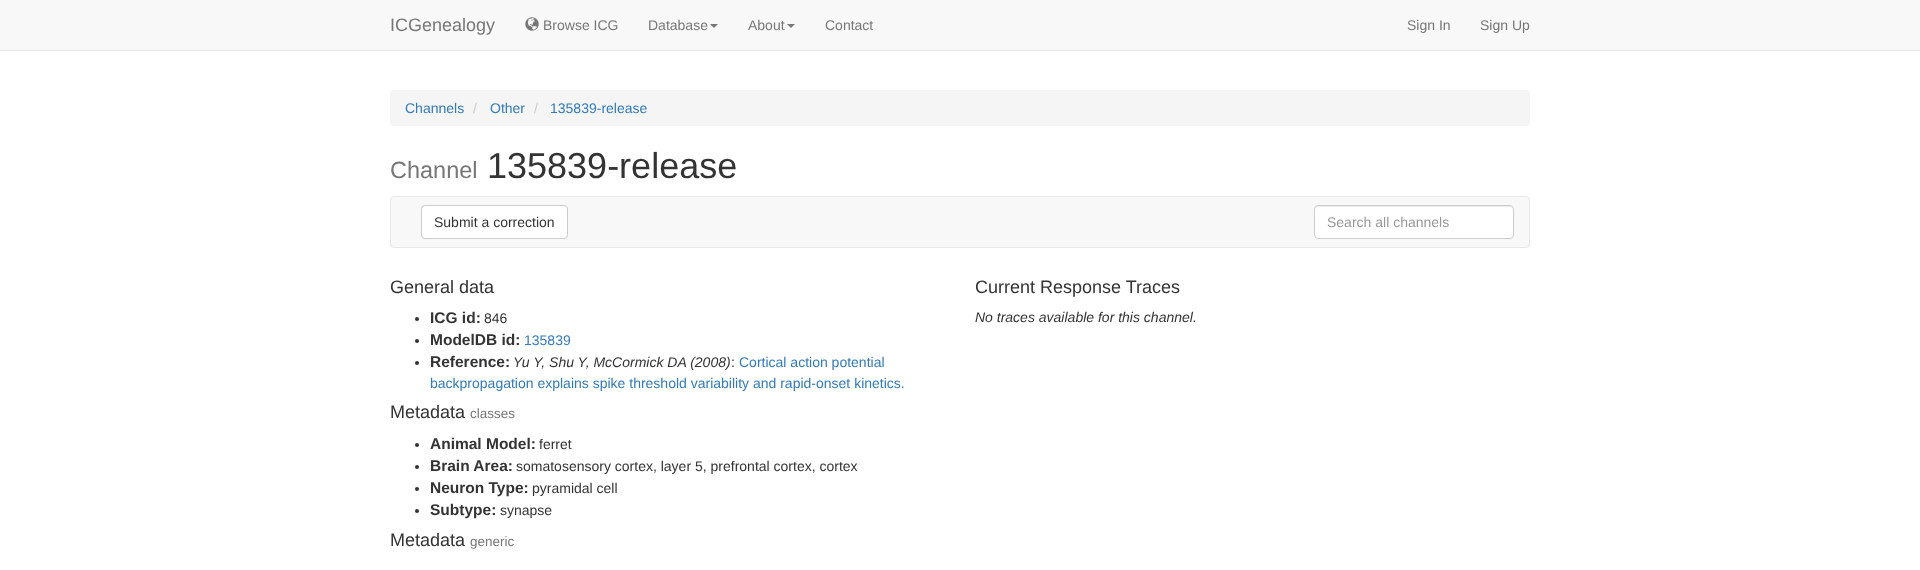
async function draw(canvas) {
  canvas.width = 1920;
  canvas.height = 570;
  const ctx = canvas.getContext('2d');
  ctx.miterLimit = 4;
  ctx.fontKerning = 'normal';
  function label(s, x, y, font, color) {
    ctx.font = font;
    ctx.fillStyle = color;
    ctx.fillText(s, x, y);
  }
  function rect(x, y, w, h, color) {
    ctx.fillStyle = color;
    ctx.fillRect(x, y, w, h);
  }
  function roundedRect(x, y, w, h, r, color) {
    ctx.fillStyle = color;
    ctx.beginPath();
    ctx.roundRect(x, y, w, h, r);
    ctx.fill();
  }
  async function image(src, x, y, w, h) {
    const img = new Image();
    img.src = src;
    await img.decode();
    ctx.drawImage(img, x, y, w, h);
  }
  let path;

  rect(0, 0, 1920, 570, '#fff');
  rect(0, 0, 1920, 50, '#f8f8f8');
  rect(0, 50, 1920, 1, '#e7e7e7');
  label('ICGenealogy', 390, 31, '18px Liberation Sans', '#777');
  await image('assets/img1.png', 525, 17, 14, 14);
  label('Browse ICG', 543, 30, '14px Liberation Sans', '#777');
  label('Database', 648, 30, '14px Liberation Sans', '#777');
  path = new Path2D('M710 24H718L714 28Z');
  ctx.fill(path);
  label('About', 748, 30, '14px Liberation Sans', '#777');
  path = new Path2D('M787 24H795L791 28Z');
  ctx.fill(path);
  label('Contact', 825, 30, '14px Liberation Sans', '#777');
  label('Sign In', 1407, 30, '14px Liberation Sans', '#777');
  label('Sign Up', 1480, 30, '14px Liberation Sans', '#777');
  roundedRect(390, 90, 1140, 36, 4, '#f5f5f5');
  label('Channels', 405, 113, '14px Liberation Sans', '#337ab7');
  label('/', 473, 113, '14px Liberation Sans', '#ccc');
  label('Other', 490, 113, '14px Liberation Sans', '#337ab7');
  label('/', 534, 113, '14px Liberation Sans', '#ccc');
  label('135839-release', 550, 113, '14px Liberation Sans', '#337ab7');
  label('Channel', 390, 178, '23.5px Liberation Sans', '#777');
  label('135839-release', 487, 178, '36px Liberation Sans', '#333');
  ctx.fillStyle = '#f8f8f8';
  ctx.beginPath();
  ctx.roundRect(390.5, 196.5, 1139, 51, 3.5);
  ctx.fill();
  ctx.strokeStyle = '#e7e7e7';
  ctx.stroke();
  ctx.fillStyle = '#fff';
  ctx.beginPath();
  ctx.roundRect(421.5, 205.5, 146, 33, 3.5);
  ctx.fill();
  ctx.strokeStyle = '#ccc';
  ctx.stroke();
  label('Submit a correction', 434, 227, '14px Liberation Sans', '#333');
  roundedRect(1314, 205, 200, 34, 4, '#fff');
  ctx.fillStyle = '#ececec';
  path = new Path2D('M1318 207H1510C1512 207 1513 208 1513 210C1513 208 1512 206 1510 206H1318C1316 206 1315 208 1315 210C1315 208 1316 207 1318 207Z');
  ctx.fill(path);
  ctx.beginPath();
  ctx.roundRect(1314.5, 205.5, 199, 33, 3.5);
  ctx.stroke();
  label('Search all channels', 1327, 227, '14px Liberation Sans', '#999');
  label('General data', 390, 293, '18px Liberation Sans', '#333');
  ctx.beginPath();
  ctx.arc(417, 319, 2, 0, 2 * Math.PI);
  ctx.fill();
  label('ICG id:', 430, 323, 'bold 15.5px Liberation Sans', '#333');
  label('846', 484, 323, '14px Liberation Sans', '#333');
  ctx.beginPath();
  ctx.arc(417, 341, 2, 0, 2 * Math.PI);
  ctx.fill();
  label('ModelDB id:', 430, 345, 'bold 15.5px Liberation Sans', '#333');
  label('135839', 524, 345, '14px Liberation Sans', '#337ab7');
  ctx.fillStyle = '#333';
  ctx.beginPath();
  ctx.arc(417, 363, 2, 0, 2 * Math.PI);
  ctx.fill();
  label('Reference:', 430, 367, 'bold 15.5px Liberation Sans', '#333');
  label('Yu Y, Shu Y, McCormick DA (2008)', 513, 367, 'italic 14px Liberation Sans', '#333');
  label(':', 731, 367, '14px Liberation Sans', '#333');
  label('Cortical action potential', 739, 367, '14px Liberation Sans', '#337ab7');
  label('backpropagation explains spike threshold variability and rapid-onset kinetics.', 430, 388, '14px Liberation Sans', '#337ab7');
  label('Metadata', 390, 418, '18px Liberation Sans', '#333');
  label('classes', 470, 418, '13.5px Liberation Sans', '#777');
  ctx.fillStyle = '#333';
  ctx.beginPath();
  ctx.arc(417, 445, 2, 0, 2 * Math.PI);
  ctx.fill();
  label('Animal Model:', 430, 449, 'bold 15.5px Liberation Sans', '#333');
  label('ferret', 539, 449, '14px Liberation Sans', '#333');
  ctx.beginPath();
  ctx.arc(417, 467, 2, 0, 2 * Math.PI);
  ctx.fill();
  label('Brain Area:', 430, 471, 'bold 15.5px Liberation Sans', '#333');
  label('somatosensory cortex, layer 5, prefrontal cortex, cortex', 516, 471, '14px Liberation Sans', '#333');
  ctx.beginPath();
  ctx.arc(417, 489, 2, 0, 2 * Math.PI);
  ctx.fill();
  label('Neuron Type:', 430, 493, 'bold 15.5px Liberation Sans', '#333');
  label('pyramidal cell', 532, 493, '14px Liberation Sans', '#333');
  ctx.beginPath();
  ctx.arc(417, 511, 2, 0, 2 * Math.PI);
  ctx.fill();
  label('Subtype:', 430, 515, 'bold 15.5px Liberation Sans', '#333');
  label('synapse', 500, 515, '14px Liberation Sans', '#333');
  label('Metadata', 390, 546, '18px Liberation Sans', '#333');
  label('generic', 470, 546, '13.5px Liberation Sans', '#777');
  label('Current Response Traces', 975, 293, '18px Liberation Sans', '#333');
  label('No traces available for this channel.', 975, 322, 'italic 14px Liberation Sans', '#333');
}

draw(document.querySelector('canvas'));
